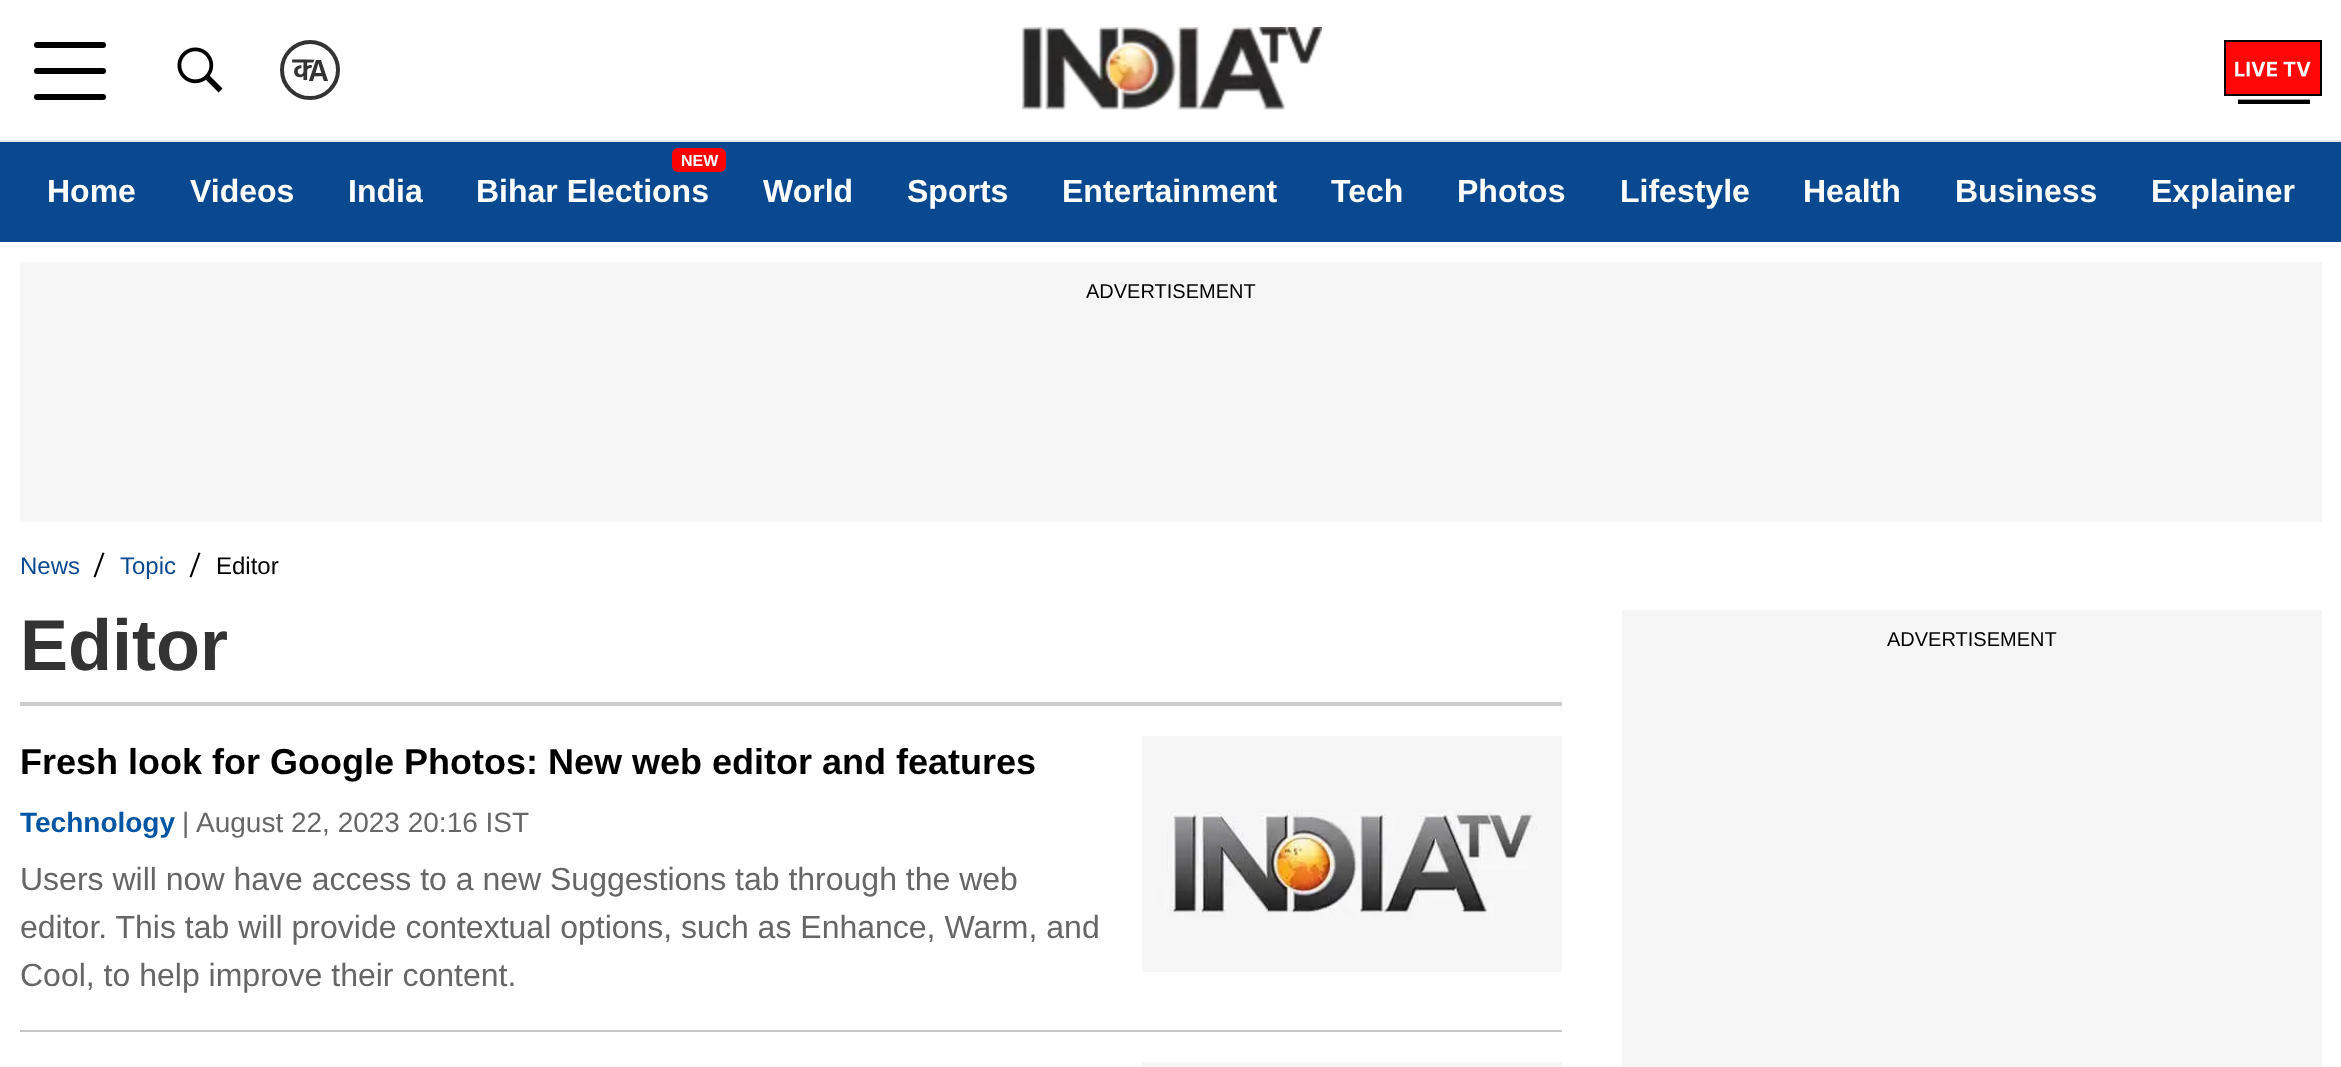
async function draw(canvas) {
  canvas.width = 2341;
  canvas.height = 1067;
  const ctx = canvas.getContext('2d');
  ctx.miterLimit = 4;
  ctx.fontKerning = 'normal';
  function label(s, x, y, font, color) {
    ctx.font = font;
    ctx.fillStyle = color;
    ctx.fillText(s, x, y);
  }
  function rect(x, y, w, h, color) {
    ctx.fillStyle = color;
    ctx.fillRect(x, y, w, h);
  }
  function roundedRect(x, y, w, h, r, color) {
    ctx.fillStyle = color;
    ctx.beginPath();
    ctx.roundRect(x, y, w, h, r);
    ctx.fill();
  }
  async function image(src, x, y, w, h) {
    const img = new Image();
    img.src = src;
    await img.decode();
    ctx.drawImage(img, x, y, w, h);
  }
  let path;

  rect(0, 0, 2341, 1067, '#fff');
  rect(0, 140, 2341, 2, '#e6e6e6');
  roundedRect(34, 42, 72, 6, 3, '#000');
  roundedRect(34, 68, 72, 6, 3, '#000');
  roundedRect(34, 94, 72, 6, 3, '#000');
  await image('assets/img1.png', 177, 47, 46, 46);
  ctx.beginPath();
  ctx.arc(310, 70, 28, 0, 2 * Math.PI);
  ctx.strokeStyle = '#333';
  ctx.lineWidth = 4;
  ctx.stroke();
  label('A', 308, 81, '600 31px Hind', '#333');
  ctx.save();
  path = new Path2D('M314.5 59.5L309 74L307 81.5H289L288.5 58Z');
  ctx.clip(path);
  label('क', 293, 80, '600 31px Hind', '#333');
  ctx.restore();
  await image('assets/img2.png', 1022, 27, 300, 83);
  await image('assets/img3.png', 2224, 40, 98, 64);
  rect(0, 142, 2341, 100, '#0a4990');
  label('Home', 47, 202, 'bold 32px Liberation Sans', '#fff');
  label('Videos', 190, 202, 'bold 32px Liberation Sans', '#fff');
  label('India', 348, 202, 'bold 32px Liberation Sans', '#fff');
  roundedRect(672, 148, 54, 24, 6, '#f00');
  label('NEW', 681, 166, 'bold 16px Liberation Sans', '#fff');
  label('Bihar Elections', 476, 202, 'bold 32px Liberation Sans', '#fff');
  label('World', 763, 202, 'bold 32px Liberation Sans', '#fff');
  label('Sports', 907, 202, 'bold 32px Liberation Sans', '#fff');
  label('Entertainment', 1062, 202, 'bold 32px Liberation Sans', '#fff');
  label('Tech', 1331, 202, 'bold 32px Liberation Sans', '#fff');
  label('Photos', 1457, 202, 'bold 32px Liberation Sans', '#fff');
  label('Lifestyle', 1620, 202, 'bold 32px Liberation Sans', '#fff');
  label('Health', 1803, 202, 'bold 32px Liberation Sans', '#fff');
  label('Business', 1955, 202, 'bold 32px Liberation Sans', '#fff');
  label('Explainer', 2151, 202, 'bold 32px Liberation Sans', '#fff');
  rect(20, 262, 2302, 260, '#f6f6f6');
  label('ADVERTISEMENT', 1086, 298, '20px Liberation Sans', '#000');
  label('News', 20, 574, '24px Liberation Sans', '#0a4990');
  ctx.fillStyle = '#000';
  path = new Path2D('M102.5 552.5L104.5 553L95.5 577.5L93.5 577Z');
  ctx.fill(path);
  label('Topic', 120, 574, '24px Liberation Sans', '#0a4990');
  ctx.fillStyle = '#000';
  path = new Path2D('M198.5 552.5L200.5 553L191.5 577.5L189.5 577Z');
  ctx.fill(path);
  label('Editor', 216, 574, '24px Liberation Sans', '#000');
  rect(20, 702, 1542, 4, '#ccc');
  label('Editor', 20, 670, 'bold 72px Liberation Sans', '#333');
  rect(20, 1030, 1542, 2, '#c5c5c5');
  label('Fresh look for Google Photos: New web editor and features', 20, 774, 'bold 36px Liberation Sans', '#000');
  await image('assets/img4.png', 1142, 736, 420, 236);
  label('Technology', 20, 832, 'bold 28px Liberation Sans', '#0155a3');
  label('|', 182, 832, '28px Liberation Sans', '#666');
  label('August 22, 2023 20:16 IST', 196, 832, '28px Liberation Sans', '#666');
  label('Users will now have access to a new Suggestions tab through the web', 20, 890, '32px Liberation Sans', '#666');
  label('editor. This tab will provide contextual options, such as Enhance, Warm, and', 20, 938, '32px Liberation Sans', '#666');
  label('Cool, to help improve their content.', 20, 986, '32px Liberation Sans', '#666');
  rect(1142, 1062, 420, 5, '#f6f6f6');
  rect(1622, 610, 700, 457, '#f6f6f6');
  label('ADVERTISEMENT', 1887, 646, '20px Liberation Sans', '#000');
}

draw(document.querySelector('canvas'));
